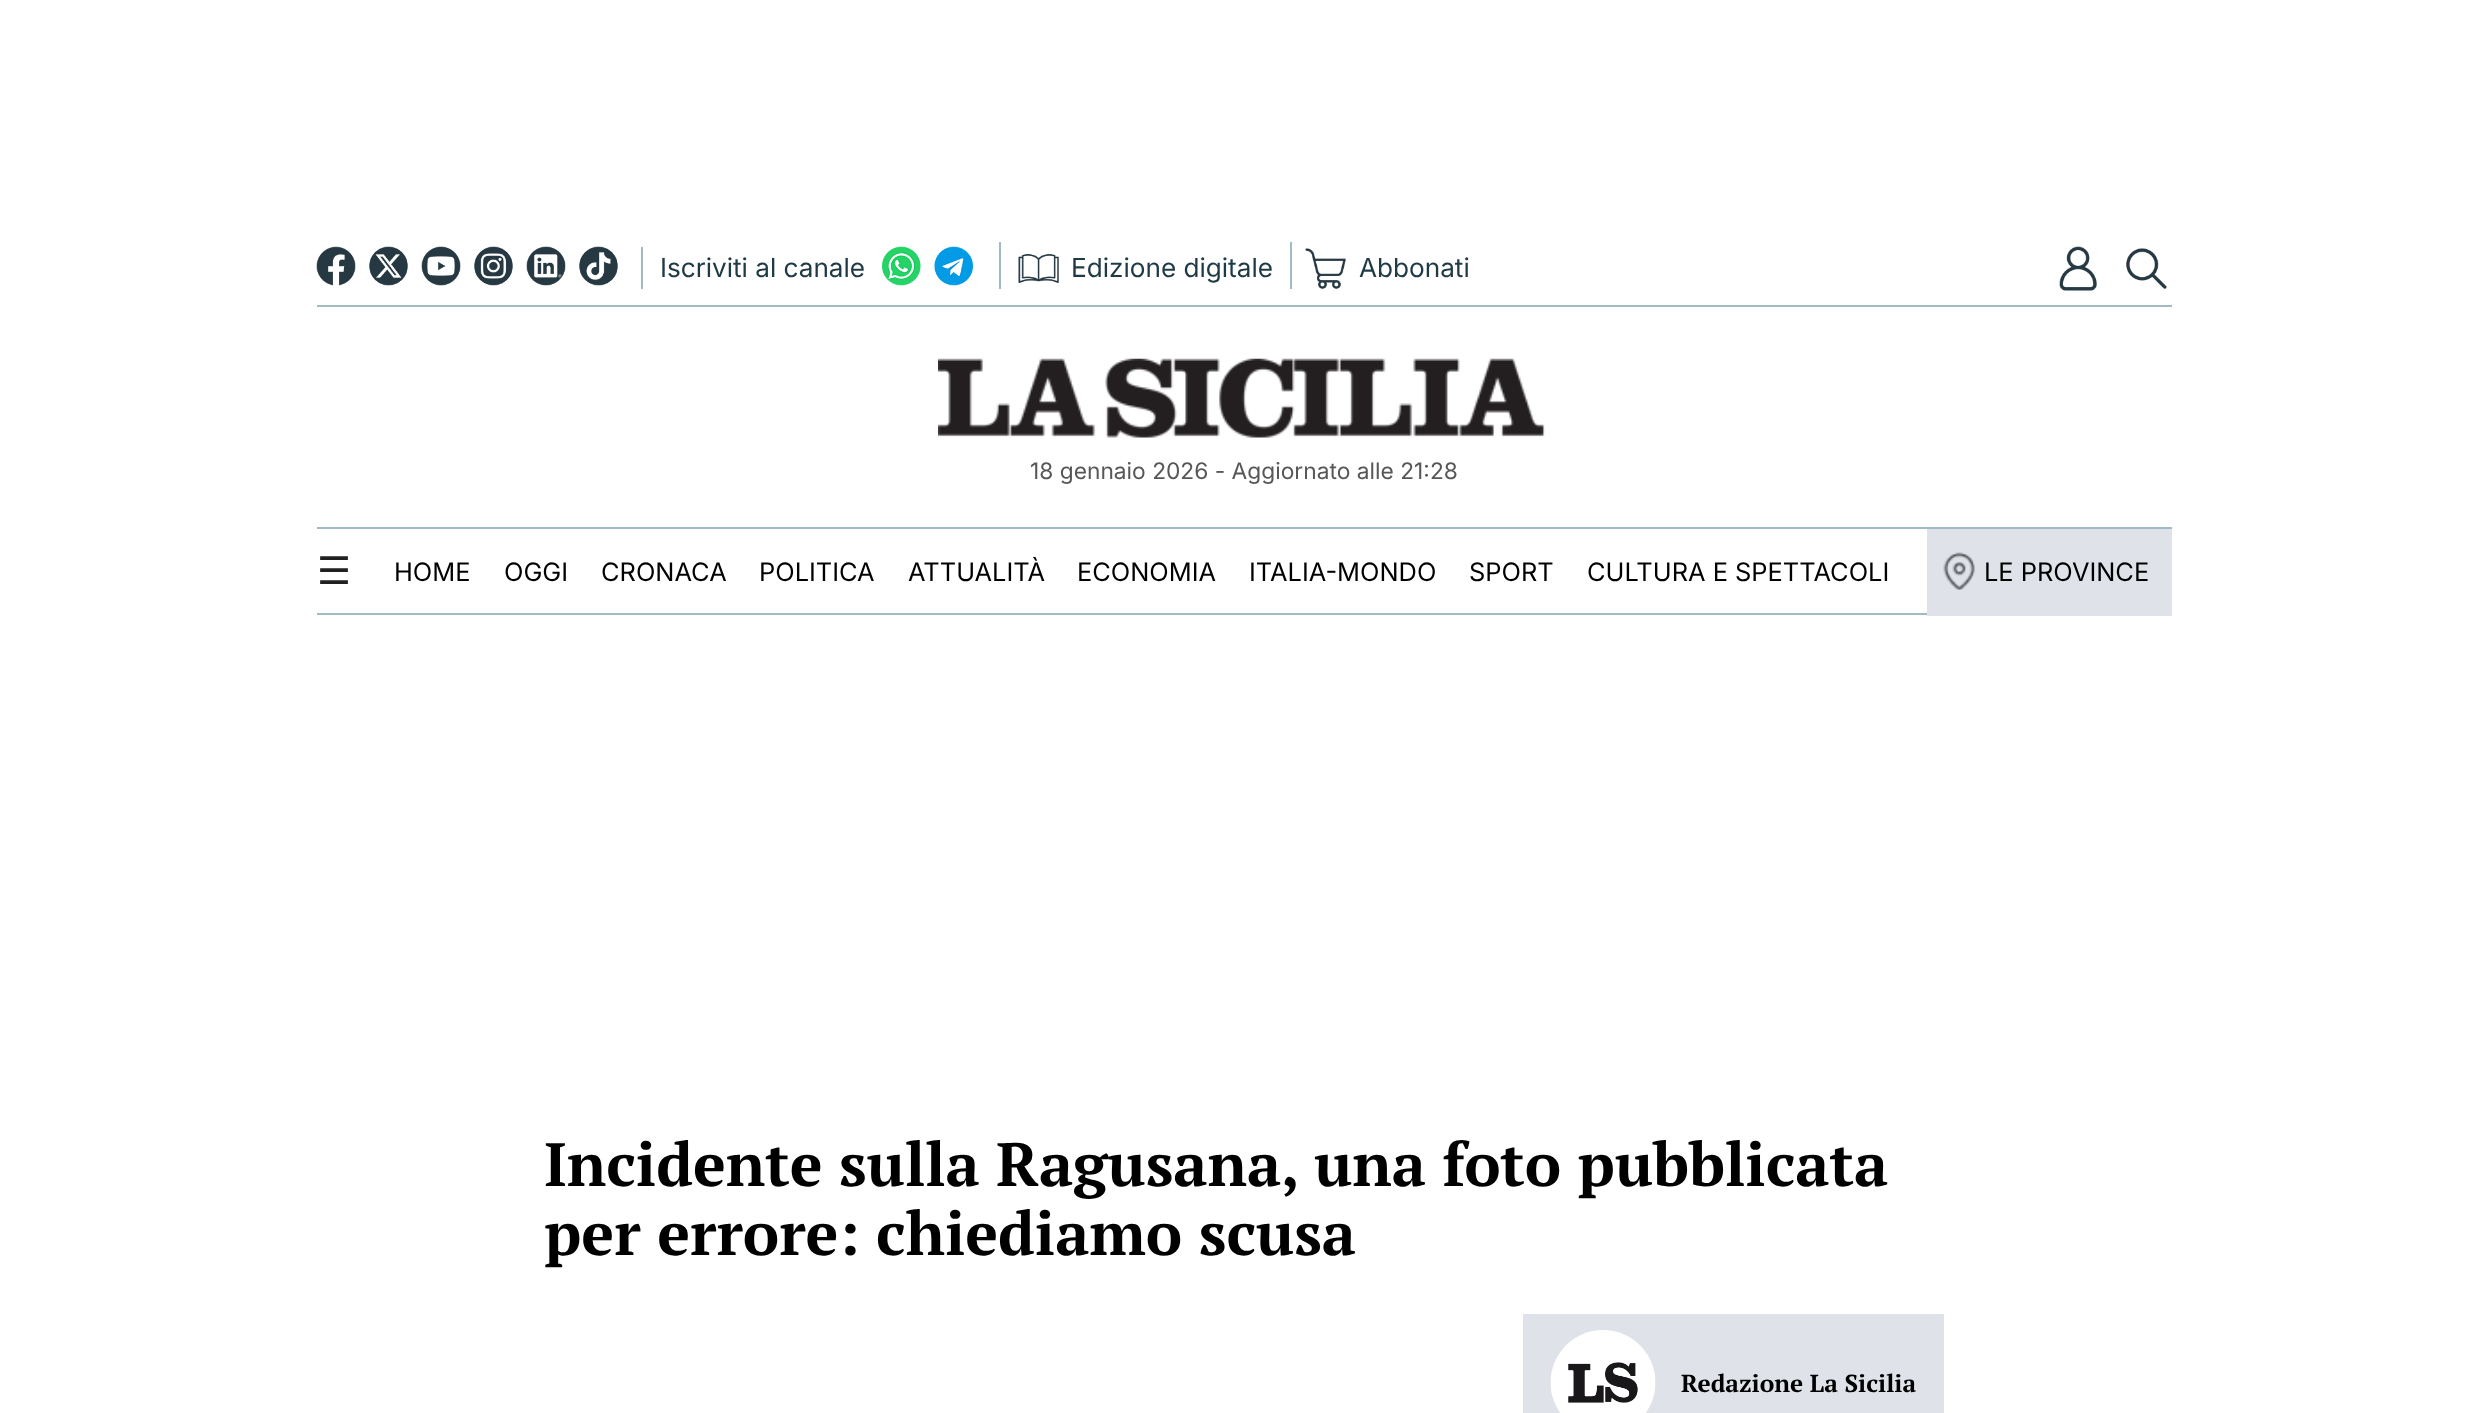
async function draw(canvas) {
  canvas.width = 2488;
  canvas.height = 1413;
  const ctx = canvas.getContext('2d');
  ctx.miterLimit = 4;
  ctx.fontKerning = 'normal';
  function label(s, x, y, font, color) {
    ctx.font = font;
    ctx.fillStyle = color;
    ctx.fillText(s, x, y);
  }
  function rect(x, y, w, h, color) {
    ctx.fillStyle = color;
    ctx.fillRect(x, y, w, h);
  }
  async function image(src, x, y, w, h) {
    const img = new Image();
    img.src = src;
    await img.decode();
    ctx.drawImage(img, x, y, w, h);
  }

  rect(0, 0, 2488, 1413, '#fff');
  rect(317, 305, 1855, 2, '#a0bac6');
  await image('assets/img1.png', 316, 246, 40, 40);
  await image('assets/img2.png', 369, 246, 39, 40);
  await image('assets/img3.png', 421, 246, 40, 40);
  await image('assets/img4.png', 474, 246, 39, 40);
  await image('assets/img5.png', 526, 246, 40, 40);
  await image('assets/img6.png', 579, 246, 39, 40);
  rect(641, 247, 2, 42, '#a0bac6');
  label('Iscriviti al canale', 660, 277, '26.25px "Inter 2"', '#1f3945');
  await image('assets/img7.png', 882, 246, 39, 40);
  await image('assets/img8.png', 934, 246, 39, 40);
  rect(1290, 242, 2, 47, '#a0bac6');
  rect(999, 242, 2, 47, '#a0bac6');
  await image('assets/img9.png', 1018, 254, 41, 29);
  label('Edizione digitale', 1071, 277, '26.25px "Inter 2"', '#1f3945');
  await image('assets/img10.png', 1305, 248, 41, 41);
  label('Abbonati', 1359, 277, '26.25px "Inter 2"', '#1f3945');
  await image('assets/img11.png', 2059, 246, 38, 45);
  await image('assets/img12.png', 2126, 248, 41, 41);
  await image('assets/img13.png', 938, 358, 607, 80);
  label('18 gennaio 2026 - Aggiornato alle 21:28', 1030, 479, '22.75px Inter', '#575757');
  rect(317, 527, 1855, 2, '#a0bac6');
  rect(317, 613, 1610, 2, '#a0bac6');
  label('☰', 317, 584, '38px DejaVu Sans', '#212121');
  label('HOME', 394, 581, '25.4px Inter', '#000');
  label('OGGI', 504, 581, '25.4px Inter', '#000');
  label('CRONACA', 601, 581, '25.4px Inter', '#000');
  label('POLITICA', 759, 581, '25.4px Inter', '#000');
  label('ATTUALITÀ', 908, 581, '25.4px Inter', '#000');
  label('ECONOMIA', 1077, 581, '25.4px Inter', '#000');
  label('ITALIA-MONDO', 1249, 581, '25.4px Inter', '#000');
  label('SPORT', 1469, 581, '25.4px Inter', '#000');
  label('CULTURA E SPETTACOLI', 1587, 581, '25.4px Inter', '#000');
  rect(1927, 529, 245, 87, '#dfe3e9');
  await image('assets/img14.png', 1943, 552, 32, 38);
  label('LE PROVINCE', 1984, 581, '25.4px Inter', '#000');
  label('Incidente sulla Ragusana, una foto pubblicata', 544, 1186, 'bold 61.25px PT Serif', '#000');
  label('per errore: chiediamo scusa', 544, 1255, 'bold 61.25px PT Serif', '#000');
  rect(1523, 1314, 421, 99, '#dfe3e9');
  await image('assets/img15.png', 1550, 1330, 106, 83);
  label('Redazione La Sicilia', 1681, 1392, 'bold 24.5px PT Serif', '#000');
}

draw(document.querySelector('canvas'));
